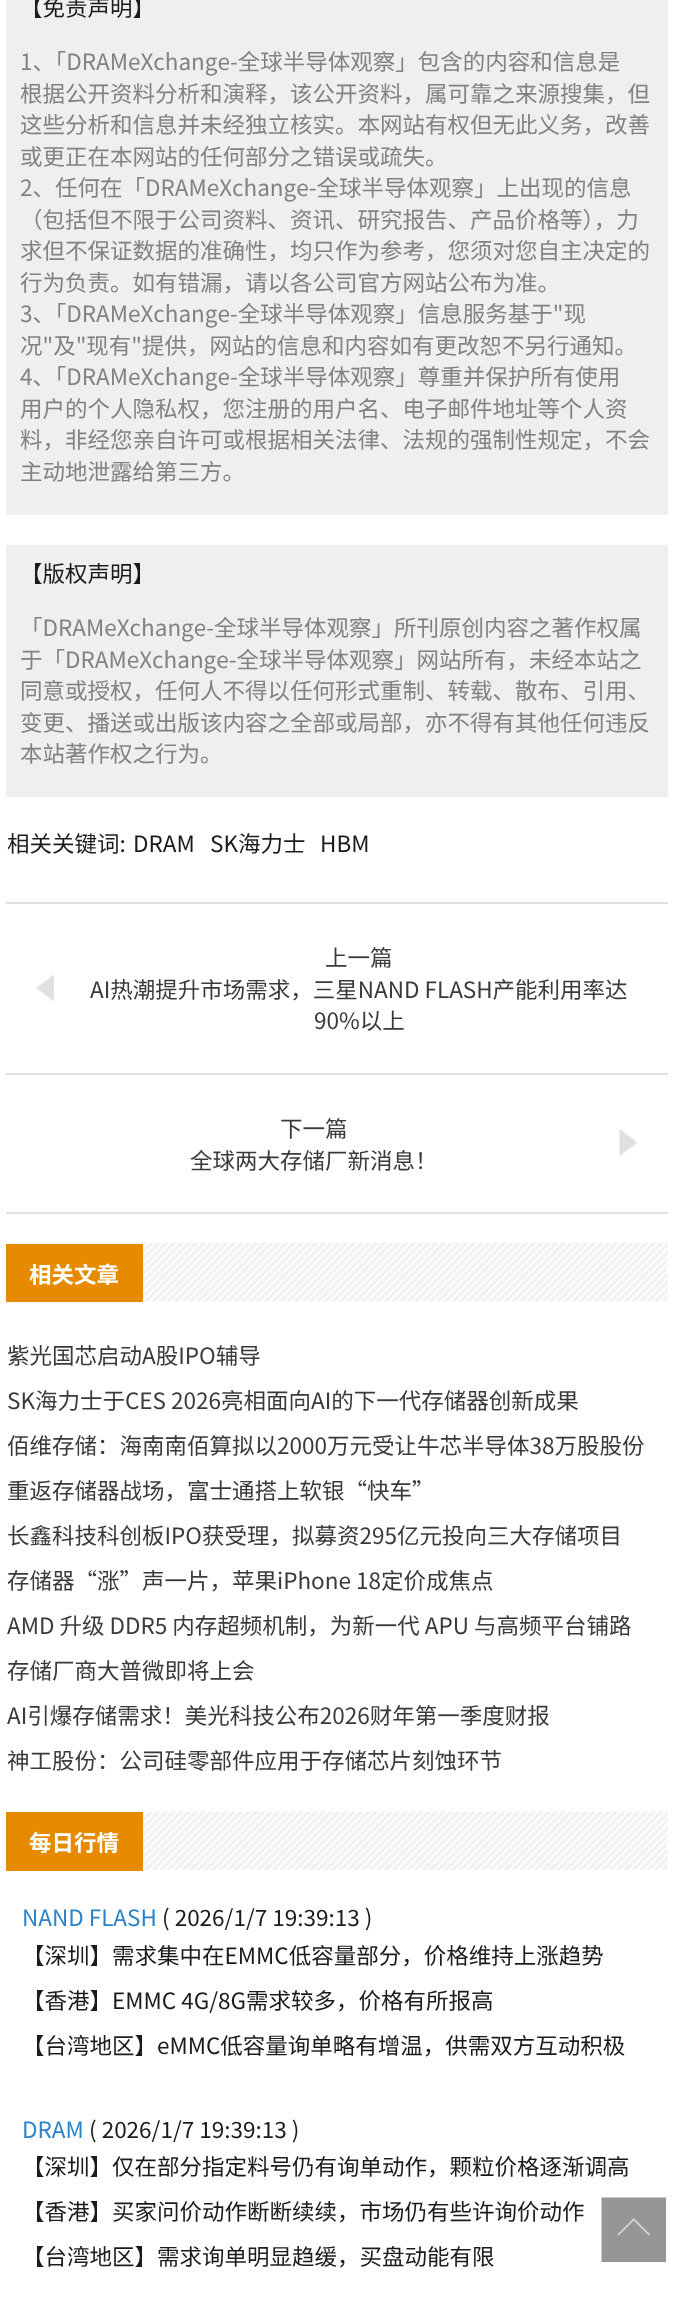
async function draw(canvas) {
  canvas.width = 673;
  canvas.height = 2307;
  const ctx = canvas.getContext('2d');
  ctx.miterLimit = 4;
  ctx.fontKerning = 'none';
  function label(s, x, y, font, color) {
    ctx.font = font;
    ctx.fillStyle = color;
    ctx.fillText(s, x, y);
  }
  function rect(x, y, w, h, color) {
    ctx.fillStyle = color;
    ctx.fillRect(x, y, w, h);
  }
  async function image(src, x, y, w, h) {
    const img = new Image();
    img.src = src;
    await img.decode();
    ctx.drawImage(img, x, y, w, h);
  }

  rect(0, 0, 673, 2307, '#fff');
  rect(6, 0, 662, 515, '#efefef');
  label('【免责声明】', 20, 16, '22.5px Noto Sans SC', '#1b1b1b');
  label('1、「DRAMeXchange-全球半导体观察」包含的内容和信息是', 20, 70, '22.5px Noto Sans SC', '#828282');
  label('根据公开资料分析和演释，该公开资料，属可靠之来源搜集，但', 20, 102, '22.5px Noto Sans SC', '#828282');
  label('这些分析和信息并未经独立核实。本网站有权但无此义务，改善', 20, 133, '22.5px Noto Sans SC', '#828282');
  label('或更正在本网站的任何部分之错误或疏失。', 20, 165, '22.5px Noto Sans SC', '#828282');
  label('2、任何在「DRAMeXchange-全球半导体观察」上出现的信息', 20, 196, '22.5px Noto Sans SC', '#828282');
  label('（包括但不限于公司资料、资讯、研究报告、产品价格等），力', 20, 228, '22.5px Noto Sans SC', '#828282');
  label('求但不保证数据的准确性，均只作为参考，您须对您自主决定的', 20, 259, '22.5px Noto Sans SC', '#828282');
  label('行为负责。如有错漏，请以各公司官方网站公布为准。', 20, 291, '22.5px Noto Sans SC', '#828282');
  label('3、「DRAMeXchange-全球半导体观察」信息服务基于"现', 20, 322, '22.5px Noto Sans SC', '#828282');
  label('况"及"现有"提供，网站的信息和内容如有更改恕不另行通知。', 20, 354, '22.5px Noto Sans SC', '#828282');
  label('4、「DRAMeXchange-全球半导体观察」尊重并保护所有使用', 20, 385, '22.5px Noto Sans SC', '#828282');
  label('用户的个人隐私权，您注册的用户名、电子邮件地址等个人资', 20, 417, '22.5px Noto Sans SC', '#828282');
  label('料，非经您亲自许可或根据相关法律、法规的强制性规定，不会', 20, 448, '22.5px Noto Sans SC', '#828282');
  label('主动地泄露给第三方。', 20, 480, '22.5px Noto Sans SC', '#828282');
  rect(6, 545, 662, 252, '#efefef');
  label('【版权声明】', 20, 582, '22.5px Noto Sans SC', '#1b1b1b');
  label('「DRAMeXchange-全球半导体观察」所刊原创内容之著作权属', 20, 636, '22.5px Noto Sans SC', '#828282');
  label('于「DRAMeXchange-全球半导体观察」网站所有，未经本站之', 20, 668, '22.5px Noto Sans SC', '#828282');
  label('同意或授权，任何人不得以任何形式重制、转载、散布、引用、', 20, 699, '22.5px Noto Sans SC', '#828282');
  label('变更、播送或出版该内容之全部或局部，亦不得有其他任何违反', 20, 731, '22.5px Noto Sans SC', '#828282');
  label('本站著作权之行为。', 20, 762, '22.5px Noto Sans SC', '#828282');
  label('相关关键词:', 7, 852, '22.5px Noto Sans SC', '#1b1b1b');
  label('DRAM', 133, 852, '22.5px Noto Sans SC', '#1b1b1b');
  label('SK海力士', 210, 852, '22.5px Noto Sans SC', '#1b1b1b');
  label('HBM', 320, 852, '22.5px Noto Sans SC', '#1b1b1b');
  rect(6, 902, 662, 2, '#e0e0e0');
  rect(6, 1212, 662, 2, '#e0e0e0');
  await image('assets/img1.png', 36, 974, 18, 28);
  label('上一篇', 325, 966, '22.5px Noto Sans SC', '#3a3a3a');
  label('AI热潮提升市场需求，三星NAND FLASH产能利用率达', 90, 998, '22.5px Noto Sans SC', '#3a3a3a');
  label('90%以上', 314, 1029, '22.5px Noto Sans SC', '#3a3a3a');
  await image('assets/img2.png', 619, 1129, 19, 27);
  rect(6, 1073, 662, 2, '#e0e0e0');
  label('下一篇', 280, 1137, '22.5px Noto Sans SC', '#3a3a3a');
  label('全球两大存储厂新消息！', 190, 1169, '22.5px Noto Sans SC', '#3a3a3a');
  await image('assets/img3.png', 6, 1243, 662, 59);
  rect(6, 1244, 137, 58, '#e68b00');
  label('相关文章', 29, 1283, 'bold 22.5px Noto Sans SC', '#fff');
  label('紫光国芯启动A股IPO辅导', 7, 1364, '22.5px Noto Sans SC', '#3a3a3a');
  label('SK海力士于CES 2026亮相面向AI的下一代存储器创新成果', 7, 1409, '22.5px Noto Sans SC', '#3a3a3a');
  label('佰维存储：海南南佰算拟以2000万元受让牛芯半导体38万股股份', 7, 1454, '22.5px Noto Sans SC', '#3a3a3a');
  label('重返存储器战场，富士通搭上软银“快车”', 7, 1499, '22.5px Noto Sans SC', '#3a3a3a');
  label('长鑫科技科创板IPO获受理，拟募资295亿元投向三大存储项目', 7, 1544, '22.5px Noto Sans SC', '#3a3a3a');
  label('存储器“涨”声一片，苹果iPhone 18定价成焦点', 7, 1589, '22.5px Noto Sans SC', '#3a3a3a');
  label('AMD 升级 DDR5 内存超频机制，为新一代 APU 与高频平台铺路', 7, 1634, '22.5px Noto Sans SC', '#3a3a3a');
  label('存储厂商大普微即将上会', 7, 1679, '22.5px Noto Sans SC', '#3a3a3a');
  label('AI引爆存储需求！美光科技公布2026财年第一季度财报', 7, 1724, '22.5px Noto Sans SC', '#3a3a3a');
  label('神工股份：公司硅零部件应用于存储芯片刻蚀环节', 7, 1769, '22.5px Noto Sans SC', '#3a3a3a');
  await image('assets/img4.png', 6, 1811, 662, 59);
  rect(6, 1812, 137, 59, '#e68b00');
  label('每日行情', 29, 1851, 'bold 22.5px Noto Sans SC', '#fff');
  label('NAND FLASH', 22, 1926, '22.5px Noto Sans SC', '#2c83c7');
  label('( 2026/1/7 19:39:13 )', 162, 1926, '22.5px Noto Sans SC', '#1b1b1b');
  label('【深圳】需求集中在EMMC低容量部分，价格维持上涨趋势', 22, 1964, '22.5px Noto Sans SC', '#1b1b1b');
  label('【香港】EMMC 4G/8G需求较多，价格有所报高', 22, 2009, '22.5px Noto Sans SC', '#1b1b1b');
  label('【台湾地区】eMMC低容量询单略有增温，供需双方互动积极', 22, 2054, '22.5px Noto Sans SC', '#1b1b1b');
  label('DRAM', 22, 2138, '22.5px Noto Sans SC', '#2c83c7');
  label('( 2026/1/7 19:39:13 )', 89, 2138, '22.5px Noto Sans SC', '#1b1b1b');
  label('【深圳】仅在部分指定料号仍有询单动作，颗粒价格逐渐调高', 22, 2175, '22.5px Noto Sans SC', '#1b1b1b');
  label('【香港】买家问价动作断断续续，市场仍有些许询价动作', 22, 2220, '22.5px Noto Sans SC', '#1b1b1b');
  label('【台湾地区】需求询单明显趋缓，买盘动能有限', 22, 2265, '22.5px Noto Sans SC', '#1b1b1b');
  await image('assets/img5.png', 601, 2197, 65, 65);
}

draw(document.querySelector('canvas'));
